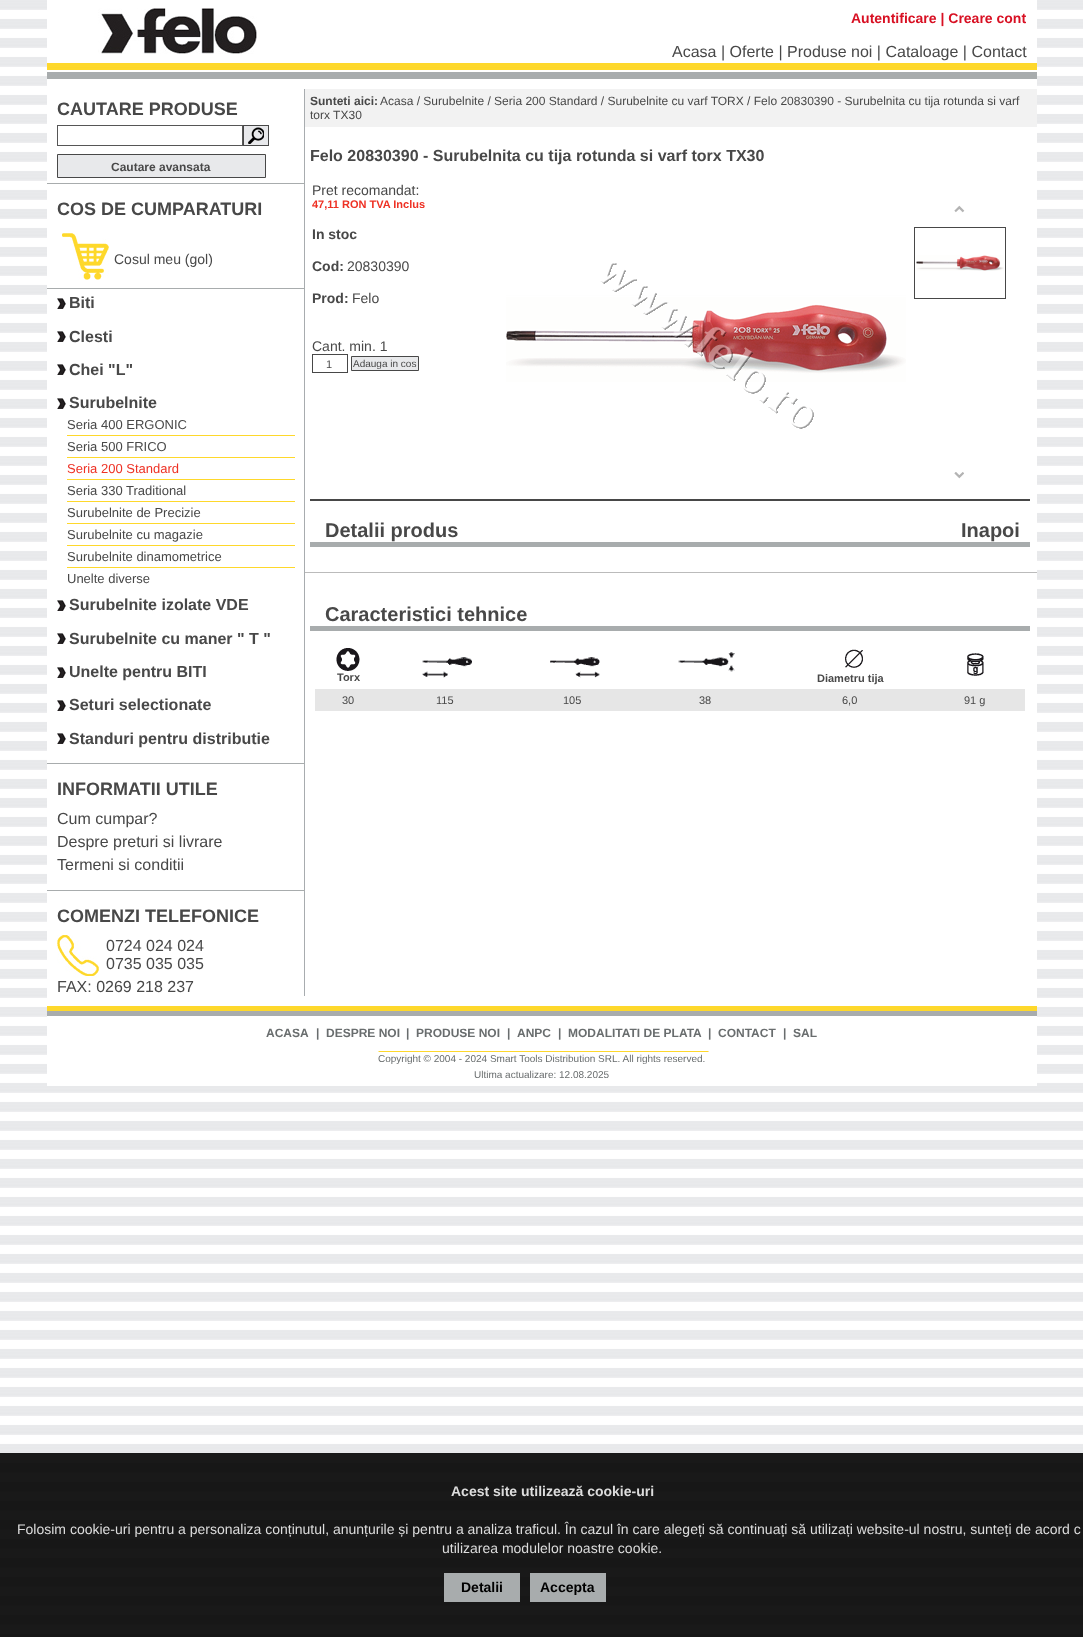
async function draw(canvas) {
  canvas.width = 1083;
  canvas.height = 1637;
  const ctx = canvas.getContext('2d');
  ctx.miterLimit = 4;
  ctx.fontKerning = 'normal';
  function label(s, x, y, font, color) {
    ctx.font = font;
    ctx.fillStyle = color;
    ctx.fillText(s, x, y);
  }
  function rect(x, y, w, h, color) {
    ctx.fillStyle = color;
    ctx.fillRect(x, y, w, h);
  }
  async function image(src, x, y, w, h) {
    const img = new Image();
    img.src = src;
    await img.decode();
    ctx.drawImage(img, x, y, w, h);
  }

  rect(0, 0, 1083, 1637, '#fff');
  await image('assets/img1.png', 0, 0, 1083, 1637);
  rect(47, 0, 990, 1086, '#fff');
  await image('assets/img2.png', 98, 8, 159, 46);
  label('Autentificare | Creare cont', 851, 23, 'bold 14px Liberation Sans', '#d81023');
  label('Acasa | Oferte | Produse noi | Cataloage | Contact', 672, 57, '16px Liberation Sans', '#484848');
  await image('assets/img3.png', 47, 63, 990, 16);
  rect(304, 89, 1, 907, '#a8acaf');
  label('CAUTARE PRODUSE', 57, 115, 'bold 18px Liberation Sans', '#484848');
  ctx.strokeStyle = '#565656';
  ctx.strokeRect(57.5, 125.5, 185, 20);
  await image('assets/img4.png', 243, 125, 26, 21);
  ctx.fillStyle = '#e8e9eb';
  ctx.beginPath();
  ctx.rect(57.5, 154.5, 208, 23);
  ctx.fill();
  ctx.strokeStyle = '#484848';
  ctx.stroke();
  label('Cautare avansata', 111, 171, 'bold 12px Liberation Sans', '#484848');
  rect(47, 183, 258, 1, '#a8acad');
  label('COS DE CUMPARATURI', 57, 215, 'bold 18px Liberation Sans', '#484848');
  await image('assets/img5.png', 62, 233, 47, 47);
  label('Cosul meu (gol)', 114, 264, '14px Liberation Sans', '#484848');
  rect(47, 288, 258, 1, '#a8acad');
  await image('assets/img6.png', 57, 298, 9, 11);
  label('Biti', 69, 308, 'bold 16px Liberation Sans', '#484848');
  await image('assets/img6.png', 57, 331, 9, 11);
  label('Clesti', 69, 342, 'bold 16px Liberation Sans', '#484848');
  await image('assets/img6.png', 57, 364, 9, 11);
  label('Chei "L"', 69, 375, 'bold 16px Liberation Sans', '#484848');
  await image('assets/img6.png', 57, 398, 9, 11);
  label('Surubelnite', 69, 408, 'bold 16px Liberation Sans', '#484848');
  label('Seria 400 ERGONIC', 67, 429, '13px Liberation Sans', '#484848');
  rect(67, 435, 228, 1, '#fed82b');
  label('Seria 500 FRICO', 67, 451, '13px Liberation Sans', '#484848');
  rect(67, 457, 228, 1, '#fed82b');
  label('Seria 200 Standard', 67, 473, '13px Liberation Sans', '#ee3124');
  rect(67, 479, 228, 1, '#fed82b');
  label('Seria 330 Traditional', 67, 495, '13px Liberation Sans', '#484848');
  rect(67, 501, 228, 1, '#fed82b');
  label('Surubelnite de Precizie', 67, 517, '13px Liberation Sans', '#484848');
  rect(67, 523, 228, 1, '#fed82b');
  label('Surubelnite cu magazie', 67, 539, '13px Liberation Sans', '#484848');
  rect(67, 545, 228, 1, '#fed82b');
  label('Surubelnite dinamometrice', 67, 561, '13px Liberation Sans', '#484848');
  rect(67, 567, 228, 1, '#fed82b');
  label('Unelte diverse', 67, 583, '13px Liberation Sans', '#484848');
  await image('assets/img6.png', 57, 600, 9, 11);
  label('Surubelnite izolate VDE', 69, 610, 'bold 16px Liberation Sans', '#484848');
  await image('assets/img6.png', 57, 633, 9, 11);
  label('Surubelnite cu maner " T "', 69, 644, 'bold 16px Liberation Sans', '#484848');
  await image('assets/img6.png', 57, 667, 9, 11);
  label('Unelte pentru BITI', 69, 677, 'bold 16px Liberation Sans', '#484848');
  await image('assets/img6.png', 57, 700, 9, 11);
  label('Seturi selectionate', 69, 710, 'bold 16px Liberation Sans', '#484848');
  await image('assets/img6.png', 57, 733, 9, 11);
  label('Standuri pentru distributie', 69, 744, 'bold 16px Liberation Sans', '#484848');
  rect(47, 763, 258, 1, '#a8acad');
  label('INFORMATII UTILE', 57, 795, 'bold 18px Liberation Sans', '#484848');
  label('Cum cumpar?', 57, 824, '16px Liberation Sans', '#484848');
  label('Despre preturi si livrare', 57, 847, '16px Liberation Sans', '#484848');
  label('Termeni si conditii', 57, 870, '16px Liberation Sans', '#484848');
  rect(47, 890, 258, 1, '#a8acad');
  label('COMENZI TELEFONICE', 57, 922, 'bold 18px Liberation Sans', '#484848');
  await image('assets/img7.png', 57, 935, 42, 43);
  label('0724 024 024', 106, 951, '16px Liberation Sans', '#484848');
  label('0735 035 035', 106, 969, '16px Liberation Sans', '#484848');
  label('FAX: 0269 218 237', 57, 992, '16px Liberation Sans', '#484848');
  rect(305, 89, 732, 38, '#f2f2f2');
  label('Sunteti aici:', 310, 105, 'bold 12px Liberation Sans', '#484848');
  label('Acasa / Surubelnite / Seria 200 Standard / Surubelnite cu varf TORX / Felo 20830390 - Surubelnita cu tija rotunda si varf', 380, 105, '12px Liberation Sans', '#484848');
  label('torx TX30', 310, 119, '12px Liberation Sans', '#484848');
  label('Felo 20830390 - Surubelnita cu tija rotunda si varf torx TX30', 310, 161, 'bold 16px Liberation Sans', '#484848');
  label('Pret recomandat:', 312, 195, '14px Liberation Sans', '#484848');
  label('47,11 RON TVA Inclus', 312, 208, 'bold 11px Liberation Sans', '#ee3124');
  label('In stoc', 312, 239, 'bold 14px Liberation Sans', '#484848');
  label('Cod:', 312, 271, 'bold 14px Liberation Sans', '#484848');
  label('20830390', 347, 271, '14px Liberation Sans', '#484848');
  label('Prod:', 312, 303, 'bold 14px Liberation Sans', '#484848');
  label('Felo', 352, 303, '14px Liberation Sans', '#484848');
  label('Cant. min. 1', 312, 351, '14px Liberation Sans', '#484848');
  ctx.strokeRect(312.5, 354.5, 35, 18);
  label('1', 326, 368, '11px Liberation Sans', '#484848');
  ctx.fillStyle = '#e8e9eb';
  ctx.beginPath();
  ctx.rect(351.5, 356.5, 67, 14);
  ctx.fill();
  ctx.stroke();
  label('Adauga in cos', 353, 367, '10px Liberation Sans', '#484848');
  await image('assets/img8.png', 506, 263, 400, 166);
  await image('assets/img9.png', 954, 205, 11, 8);
  ctx.strokeRect(914.5, 227.5, 91, 71);
  await image('assets/img10.png', 916, 255, 88, 16);
  await image('assets/img11.png', 954, 472, 10, 7);
  rect(310, 499, 720, 2, '#484848');
  rect(310, 542, 720, 5, '#a8acad');
  label('Detalii produs', 325, 537, 'bold 20px Liberation Sans', '#484848');
  label('Inapoi', 961, 537, 'bold 20px Liberation Sans', '#484848');
  rect(305, 572, 732, 1, '#bbb');
  rect(310, 626, 720, 5, '#a8acad');
  label('Caracteristici tehnice', 325, 621, 'bold 20px Liberation Sans', '#484848');
  await image('assets/img12.png', 336, 648, 24, 23);
  label('Torx', 337, 681, 'bold 11px Liberation Sans', '#484848');
  await image('assets/img13.png', 422, 657, 50, 21);
  await image('assets/img14.png', 550, 657, 50, 21);
  await image('assets/img15.png', 678, 652, 57, 20);
  await image('assets/img16.png', 845, 649, 18, 19);
  label('Diametru tija', 817, 682, 'bold 11px Liberation Sans', '#484848');
  await image('assets/img17.png', 967, 653, 17, 23);
  rect(315, 689, 710, 22, '#e6e6e6');
  label('30', 342, 704, '11px Liberation Sans', '#484848');
  label('115', 436, 704, '11px Liberation Sans', '#484848');
  label('105', 563, 704, '11px Liberation Sans', '#484848');
  label('38', 699, 704, '11px Liberation Sans', '#484848');
  label('6,0', 842, 704, '11px Liberation Sans', '#484848');
  label('91 g', 964, 704, '11px Liberation Sans', '#484848');
  await image('assets/img18.png', 47, 1006, 990, 10);
  label('ACASA', 266, 1037, 'bold 12px Liberation Sans', '#696d6e');
  label('|', 316, 1037, 'bold 12px Liberation Sans', '#696d6e');
  label('DESPRE NOI', 326, 1037, 'bold 12px Liberation Sans', '#696d6e');
  label('|', 406, 1037, 'bold 12px Liberation Sans', '#696d6e');
  label('PRODUSE NOI', 416, 1037, 'bold 12px Liberation Sans', '#696d6e');
  label('|', 507, 1037, 'bold 12px Liberation Sans', '#696d6e');
  label('ANPC', 517, 1037, 'bold 12px Liberation Sans', '#696d6e');
  label('|', 558, 1037, 'bold 12px Liberation Sans', '#696d6e');
  label('MODALITATI DE PLATA', 568, 1037, 'bold 12px Liberation Sans', '#696d6e');
  label('|', 708, 1037, 'bold 12px Liberation Sans', '#696d6e');
  label('CONTACT', 718, 1037, 'bold 12px Liberation Sans', '#696d6e');
  label('|', 783, 1037, 'bold 12px Liberation Sans', '#696d6e');
  label('SAL', 793, 1037, 'bold 12px Liberation Sans', '#696d6e');
  await image('assets/img19.png', 378, 1051, 331, 1);
  label('Copyright © 2004 - 2024 Smart Tools Distribution SRL. All rights reserved.', 378, 1062, '10px Liberation Sans', '#696d6e');
  label('Ultima actualizare: 12.08.2025', 474, 1078, '10px Liberation Sans', '#696d6e');
  rect(0, 1453, 1083, 184, '#000000e6');
  label('Acest site utilizează cookie-uri', 451, 1496, 'bold 14px Liberation Sans', '#ddd');
  label('Folosim cookie-uri pentru a personaliza conținutul, anunțurile și pentru a analiza traficul. În cazul în care alegeți să continuați să utilizați website-ul nostru, sunteți de acord c', 17, 1534, '14px Liberation Sans', '#ddd');
  label('utilizarea modulelor noastre cookie.', 442, 1553, '14px Liberation Sans', '#ddd');
  rect(444, 1573, 76, 29, '#a8acad');
  label('Detalii', 461, 1592, 'bold 14px Liberation Sans', '#000');
  rect(530, 1573, 76, 29, '#a8acad');
  label('Accepta', 540, 1592, 'bold 14px Liberation Sans', '#000');
}

draw(document.querySelector('canvas'));
